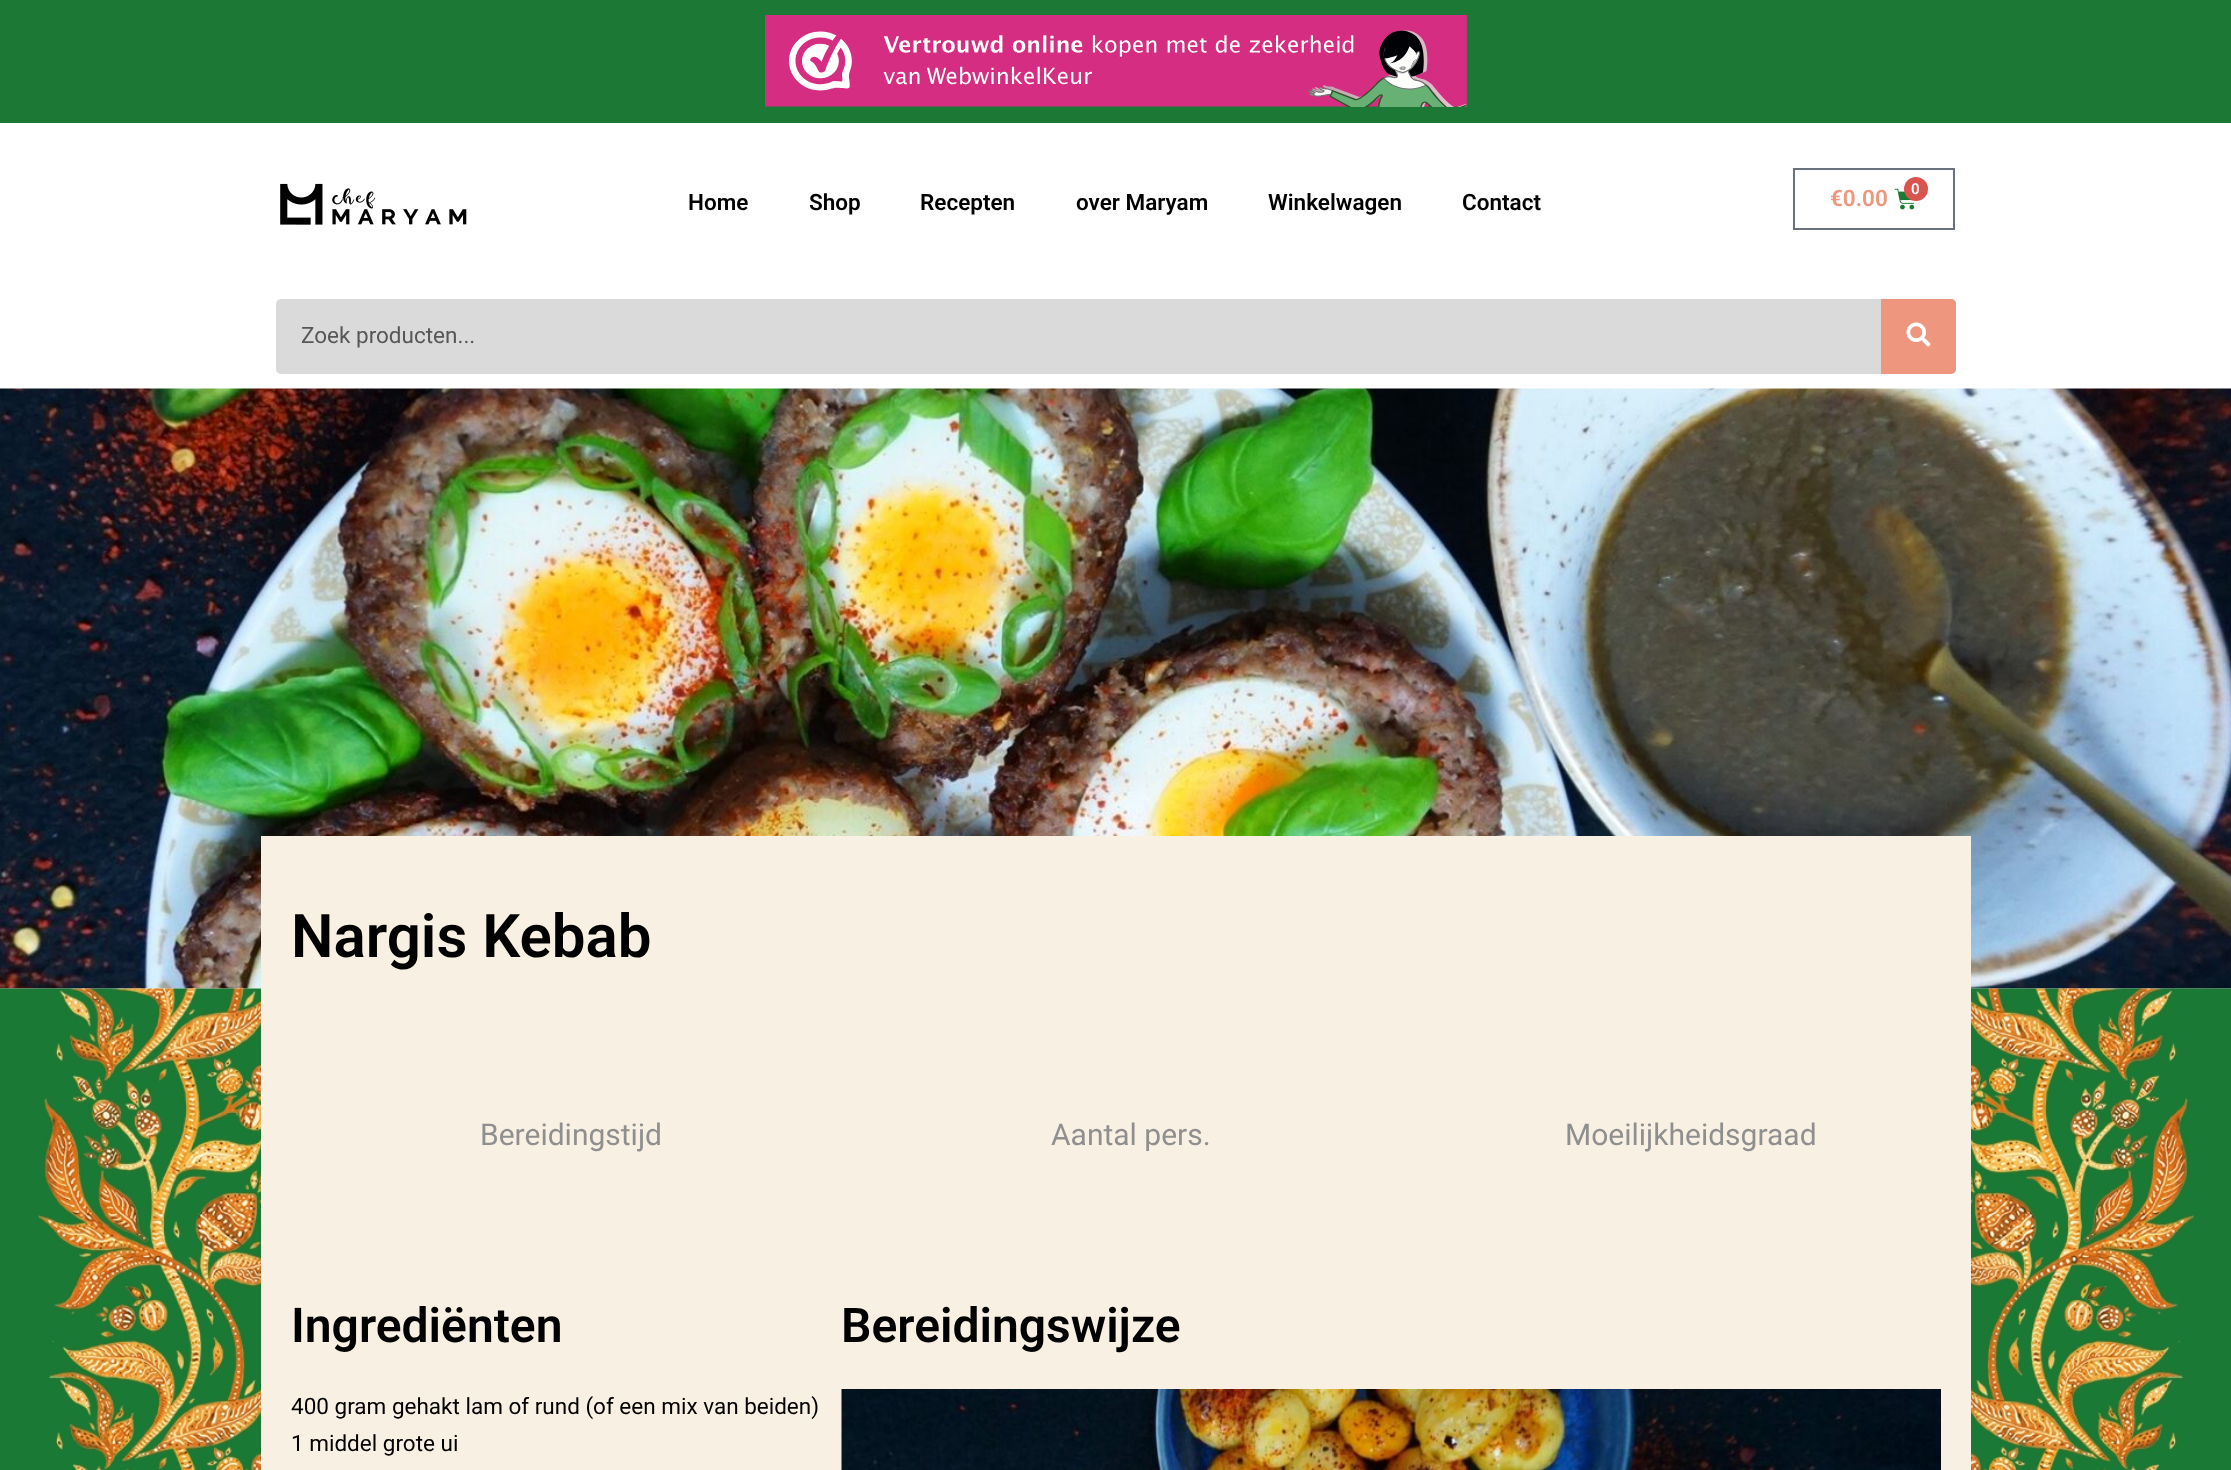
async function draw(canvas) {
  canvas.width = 2231;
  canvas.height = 1470;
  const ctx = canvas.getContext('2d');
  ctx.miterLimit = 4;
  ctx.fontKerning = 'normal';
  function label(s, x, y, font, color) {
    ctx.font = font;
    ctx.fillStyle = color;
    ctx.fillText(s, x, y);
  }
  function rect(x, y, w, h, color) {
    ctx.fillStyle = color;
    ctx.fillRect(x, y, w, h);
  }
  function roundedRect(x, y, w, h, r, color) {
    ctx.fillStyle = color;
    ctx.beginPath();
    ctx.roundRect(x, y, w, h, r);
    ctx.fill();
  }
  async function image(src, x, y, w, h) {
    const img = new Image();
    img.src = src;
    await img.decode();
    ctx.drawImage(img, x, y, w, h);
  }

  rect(0, 0, 2231, 1470, '#fff');
  rect(0, 0, 2231, 123, '#1c7935');
  await image('assets/img1.png', 765, 15, 702, 92);
  await image('assets/img2.png', 280, 183, 187, 42);
  label('Home', 688, 210, '600 22.5px Roboto', '#000');
  label('Shop', 809, 210, '600 22.5px Roboto', '#000');
  label('Recepten', 920, 210, '600 22.5px Roboto', '#000');
  label('over Maryam', 1076, 210, '600 22.5px Roboto', '#000');
  label('Winkelwagen', 1268, 210, '600 22.5px Roboto', '#000');
  label('Contact', 1462, 210, '600 22.5px Roboto', '#000');
  ctx.strokeStyle = '#69727d';
  ctx.lineWidth = 2;
  ctx.strokeRect(1794, 169, 160, 60);
  label('€0.00', 1830, 206, '600 22.5px Roboto', '#ee967e');
  await image('assets/img3.png', 1894, 188, 21, 22);
  ctx.fillStyle = '#d9534f';
  ctx.beginPath();
  ctx.arc(1916, 189, 12, 0, 2 * Math.PI);
  ctx.fill();
  label('0', 1911, 194, '600 15px Roboto', '#fff');
  roundedRect(276, 299, 1680, 75, 5, '#dadada');
  label('Zoek producten...', 301, 343, '22.5px Roboto', '#575757');
  ctx.fillStyle = '#ee967e';
  ctx.beginPath();
  ctx.roundRect(1881, 299, 75, 75, [0, 5, 5, 0]);
  ctx.fill();
  await image('assets/img4.png', 1906, 322, 25, 25);
  await image('assets/img5.png', 0, 388, 2231, 601);
  await image('assets/img6.png', 0, 988, 2231, 482);
  rect(261, 836, 1710, 634, '#f8f0e3');
  label('Nargis Kebab', 291, 957, '600 60px Roboto', '#000');
  label('Bereidingstijd', 480, 1145, '30px Roboto', '#8f8f8f');
  label('Aantal pers.', 1051, 1145, '30px Roboto', '#8f8f8f');
  label('Moeilijkheidsgraad', 1565, 1145, '30px Roboto', '#8f8f8f');
  label('Ingrediënten', 291, 1342, '600 48px Roboto', '#000');
  label('400 gram gehakt lam of rund (of een mix van beiden)', 291, 1414, '22.5px Roboto', '#000');
  label('1 middel grote ui', 291, 1451, '22.5px Roboto', '#000');
  label('Bereidingswijze', 841, 1342, '600 48px Roboto', '#000');
  await image('assets/img7.png', 841, 1389, 1100, 81);
}

draw(document.querySelector('canvas'));
